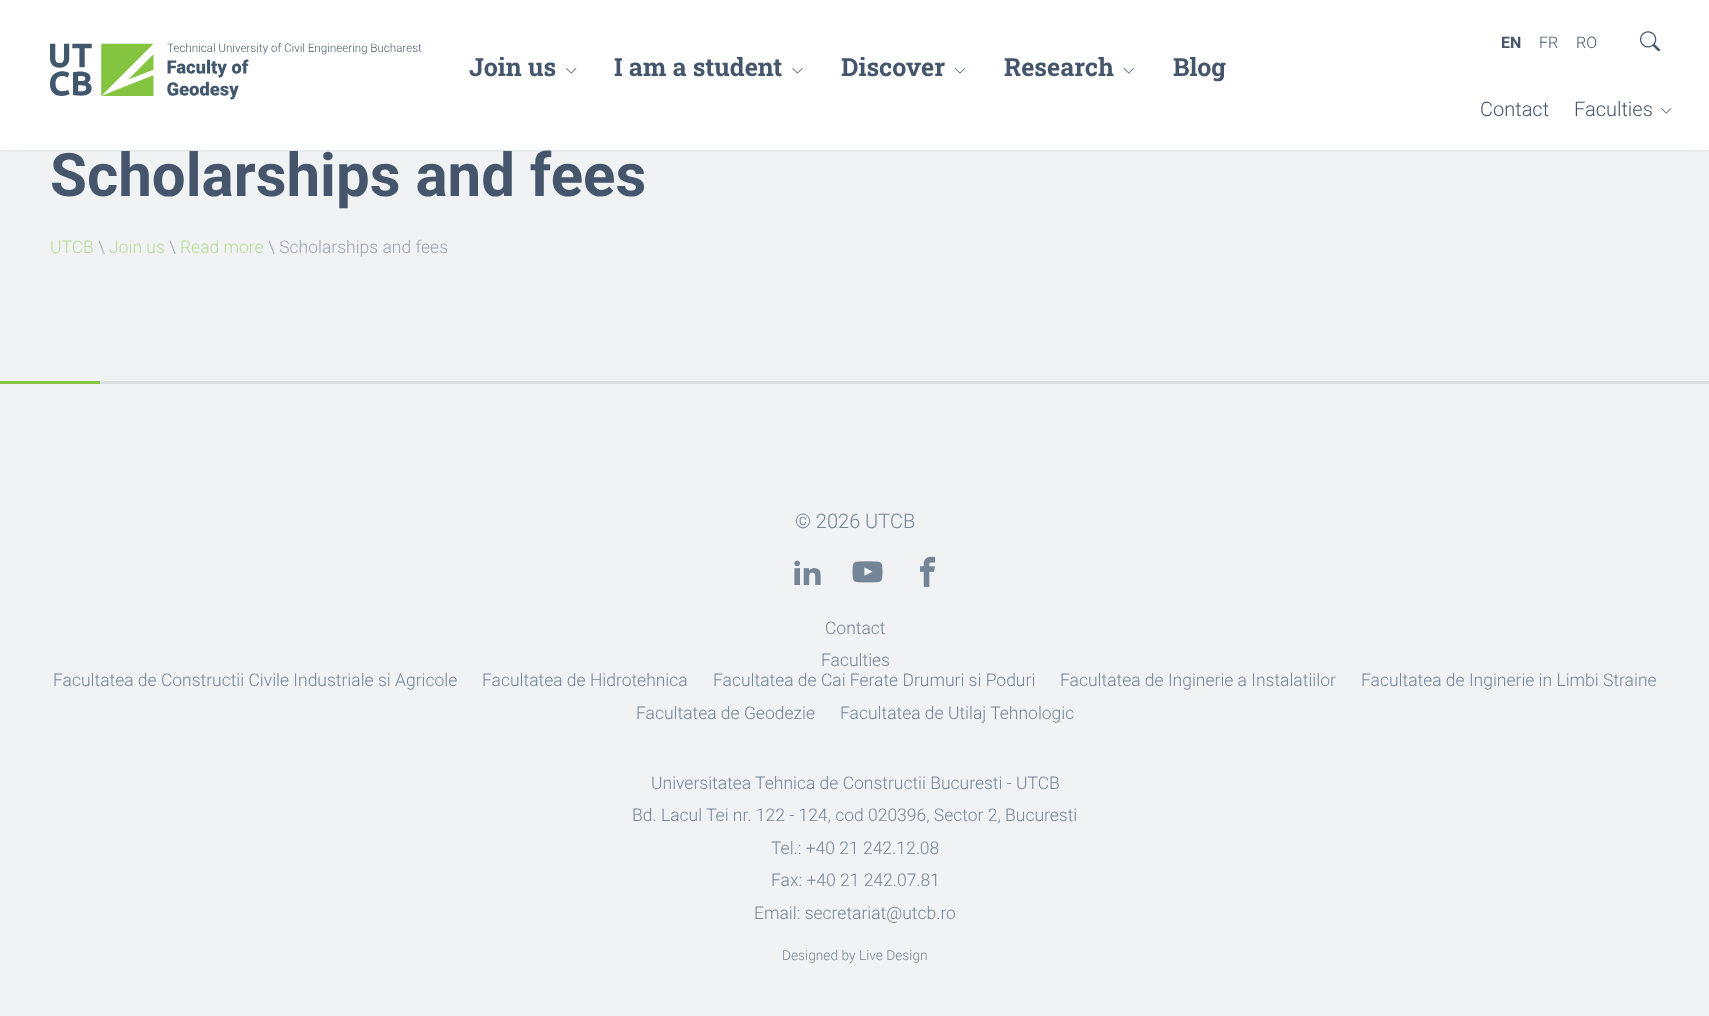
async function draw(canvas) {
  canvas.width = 1709;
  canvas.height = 1016;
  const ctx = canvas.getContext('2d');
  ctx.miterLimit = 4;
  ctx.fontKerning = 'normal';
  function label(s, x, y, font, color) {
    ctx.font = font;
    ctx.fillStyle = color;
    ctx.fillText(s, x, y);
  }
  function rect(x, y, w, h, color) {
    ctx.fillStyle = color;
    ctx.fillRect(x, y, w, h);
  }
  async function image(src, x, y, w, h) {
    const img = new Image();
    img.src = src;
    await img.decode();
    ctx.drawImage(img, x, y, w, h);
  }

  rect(0, 0, 1709, 1016, '#f1f2f4');
  ctx.fillStyle = '#4c5f771a';
  ctx.filter = 'blur(1px)';
  ctx.beginPath();
  ctx.rect(1, 4, 1708, 147);
  ctx.fill();
  ctx.filter = 'none';
  rect(0, 0, 1709, 150, '#fff');
  await image('assets/img1.png', 50, 43, 372, 57);
  label('EN', 1501, 48, 'bold 16px Roboto', '#45566c');
  label('FR', 1539, 48, '300 16px Roboto', '#45566c');
  label('RO', 1576, 48, '300 16px Roboto', '#45566c');
  await image('assets/img2.png', 1640, 31, 20, 21);
  label('Join us', 469, 76, 'bold 25px Roboto Slab', '#45566c');
  await image('assets/img3.png', 566, 68, 11, 6);
  label('I am a student', 614, 76, 'bold 25px Roboto Slab', '#45566c');
  await image('assets/img4.png', 792, 68, 11, 6);
  label('Discover', 841, 76, 'bold 25px Roboto Slab', '#45566c');
  await image('assets/img5.png', 954, 68, 11, 6);
  label('Research', 1004, 76, 'bold 25px Roboto Slab', '#45566c');
  await image('assets/img6.png', 1123, 68, 11, 6);
  label('Blog', 1173, 76, 'bold 25px Roboto Slab', '#45566c');
  label('Contact', 1480, 116, '300 20px Roboto', '#45566c');
  label('Faculties', 1574, 116, '300 20px Roboto', '#45566c');
  await image('assets/img3.png', 1661, 108, 11, 6);
  label('Scholarships and fees', 50, 196, 'bold 60px Roboto', '#45566c');
  label('UTCB', 50, 253, '300 17.5px Roboto', '#bbdb9b');
  label('\\', 98, 253, '300 17.5px Roboto', '#9ba4b0');
  label('Join us', 109, 253, '300 17.5px Roboto', '#bbdb9b');
  label('\\', 169, 253, '300 17.5px Roboto', '#9ba4b0');
  label('Read more', 180, 253, '300 17.5px Roboto', '#bbdb9b');
  label('\\ Scholarships and fees', 268, 253, '300 17.5px Roboto', '#9ba4b0');
  rect(100, 381, 1609, 3, '#dadfe4');
  rect(0, 381, 100, 3, '#84c441');
  label('© 2026 UTCB', 795, 528, '300 20px Roboto', '#758598');
  await image('assets/img7.png', 794, 560, 27, 25);
  await image('assets/img8.png', 852, 561, 31, 22);
  await image('assets/img9.png', 920, 556, 15, 31);
  label('Contact', 825, 634, '300 17.5px Roboto', '#758598');
  label('Faculties', 821, 666, '300 17.5px Roboto', '#758598');
  label('Facultatea de Constructii Civile Industriale si Agricole', 53, 686, '300 17.5px Roboto', '#758598');
  label('Facultatea de Hidrotehnica', 482, 686, '300 17.5px Roboto', '#758598');
  label('Facultatea de Cai Ferate Drumuri si Poduri', 713, 686, '300 17.5px Roboto', '#758598');
  label('Facultatea de Inginerie a Instalatiilor', 1060, 686, '300 17.5px Roboto', '#758598');
  label('Facultatea de Inginerie in Limbi Straine', 1361, 686, '300 17.5px Roboto', '#758598');
  label('Facultatea de Geodezie', 636, 719, '300 17.5px Roboto', '#758598');
  label('Facultatea de Utilaj Tehnologic', 840, 719, '300 17.5px Roboto', '#758598');
  label('Universitatea Tehnica de Constructii Bucuresti - UTCB', 651, 789, '300 17.5px Roboto', '#758598');
  label('Bd. Lacul Tei nr. 122 - 124, cod 020396, Sector 2, Bucuresti', 632, 821, '300 17.5px Roboto', '#758598');
  label('Tel.: +40 21 242.12.08', 771, 854, '300 17.5px Roboto', '#758598');
  label('Fax: +40 21 242.07.81', 771, 886, '300 17.5px Roboto', '#758598');
  label('Email: secretariat@utcb.ro', 754, 919, '300 17.5px Roboto', '#758598');
  label('Designed by Live Design', 782, 960, '300 13.75px Roboto', '#758598');
}

draw(document.querySelector('canvas'));
